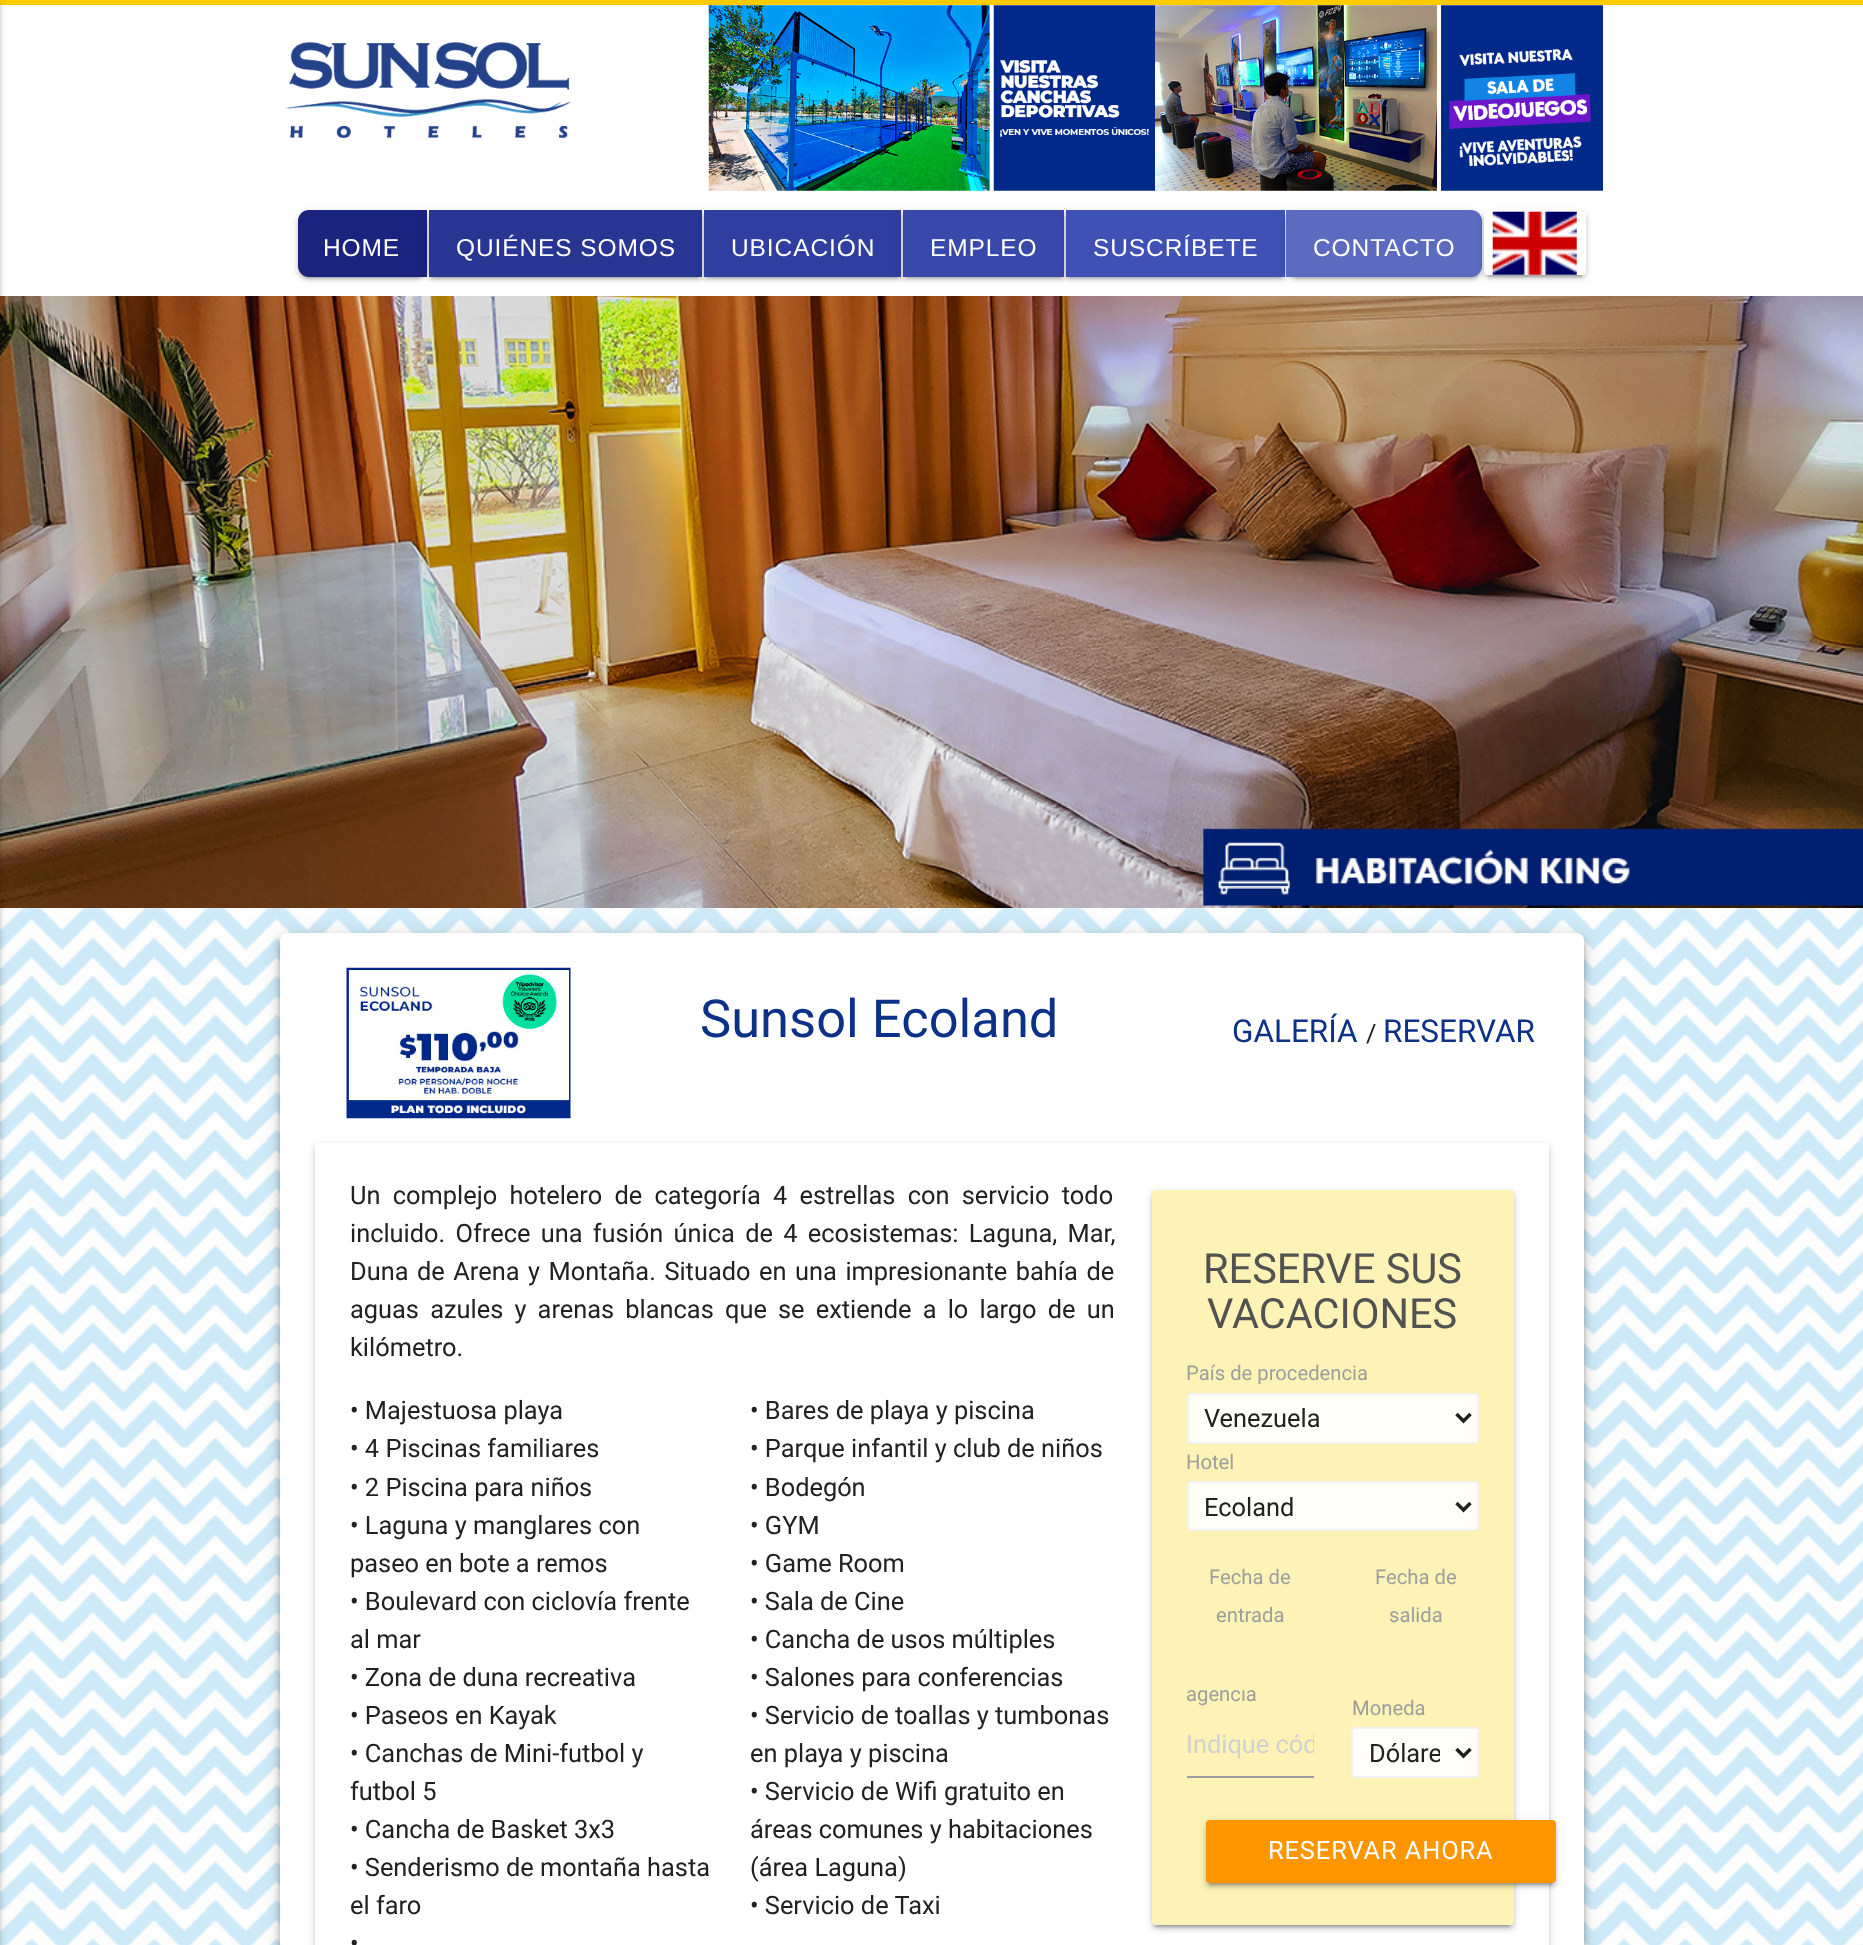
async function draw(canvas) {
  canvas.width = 1863;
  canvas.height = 1945;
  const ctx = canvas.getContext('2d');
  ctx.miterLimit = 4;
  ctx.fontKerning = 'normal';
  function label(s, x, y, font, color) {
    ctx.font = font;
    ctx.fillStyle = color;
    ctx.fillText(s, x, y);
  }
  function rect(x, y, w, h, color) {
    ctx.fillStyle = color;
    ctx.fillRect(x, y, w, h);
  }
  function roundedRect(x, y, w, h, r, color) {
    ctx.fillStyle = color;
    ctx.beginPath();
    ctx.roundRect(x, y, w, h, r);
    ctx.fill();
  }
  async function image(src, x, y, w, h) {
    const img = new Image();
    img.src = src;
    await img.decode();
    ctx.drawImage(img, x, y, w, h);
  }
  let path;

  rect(0, 0, 1863, 1945, '#fff');
  rect(0, 0, 1863, 5, '#fccb02');
  await image('assets/img1.png', 285, 42, 286, 97);
  await image('assets/img2.png', 708, 5, 447, 186);
  await image('assets/img3.png', 1155, 5, 448, 186);
  await image('assets/img6.png', 0, 908, 1863, 1037);
  ctx.fillStyle = '#0000001f';
  ctx.filter = 'blur(9px)';
  ctx.beginPath();
  ctx.roundRect(280, 935, 1304, 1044, 7);
  ctx.fill();
  ctx.filter = 'none';
  await image('assets/img5.png', 0, 296, 1863, 612);
  ctx.filter = 'blur(4.5px)';
  ctx.beginPath();
  ctx.rect(-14, 2, 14, 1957);
  ctx.fill();
  ctx.filter = 'none';
  ctx.fillStyle = '#00000024';
  ctx.filter = 'blur(2px)';
  ctx.beginPath();
  ctx.rect(-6, 4, 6, 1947);
  ctx.fill();
  ctx.filter = 'none';
  ctx.fillStyle = '#00000033';
  ctx.filter = 'blur(1px)';
  ctx.beginPath();
  ctx.roundRect(301, 219, 123, 59, 7);
  ctx.fill();
  ctx.filter = 'none';
  ctx.fillStyle = '#0000001f';
  ctx.filter = 'blur(4.5px)';
  ctx.beginPath();
  ctx.roundRect(298, 212, 129, 66, 11);
  ctx.fill();
  ctx.filter = 'none';
  ctx.fillStyle = '#00000024';
  ctx.filter = 'blur(2px)';
  ctx.beginPath();
  ctx.roundRect(298, 214, 129, 66, 11);
  ctx.fill();
  ctx.filter = 'none';
  ctx.fillStyle = '#1a237e';
  ctx.beginPath();
  ctx.roundRect(298, 210, 129, 67, [11, 0, 0, 11]);
  ctx.fill();
  ctx.letterSpacing = '0.9px';
  label('HOME', 323, 256, '24.5px Liberation Sans', '#fff');
  ctx.fillStyle = '#00000033';
  ctx.filter = 'blur(1px)';
  ctx.beginPath();
  ctx.rect(432, 219, 266, 59);
  ctx.fill();
  ctx.filter = 'none';
  ctx.fillStyle = '#0000001f';
  ctx.filter = 'blur(4.5px)';
  ctx.beginPath();
  ctx.rect(429, 212, 273, 66);
  ctx.fill();
  ctx.filter = 'none';
  ctx.fillStyle = '#00000024';
  ctx.filter = 'blur(2px)';
  ctx.beginPath();
  ctx.rect(429, 214, 273, 66);
  ctx.fill();
  ctx.filter = 'none';
  rect(429, 210, 273, 67, '#283593');
  label('QUIÉNES SOMOS', 456, 256, '24.5px Liberation Sans', '#fff');
  ctx.fillStyle = '#00000033';
  ctx.filter = 'blur(1px)';
  ctx.beginPath();
  ctx.rect(707, 219, 191, 59);
  ctx.fill();
  ctx.filter = 'none';
  ctx.fillStyle = '#0000001f';
  ctx.filter = 'blur(4.5px)';
  ctx.beginPath();
  ctx.rect(704, 212, 197, 66);
  ctx.fill();
  ctx.filter = 'none';
  ctx.fillStyle = '#00000024';
  ctx.filter = 'blur(2px)';
  ctx.beginPath();
  ctx.rect(704, 214, 197, 66);
  ctx.fill();
  ctx.filter = 'none';
  rect(704, 210, 197, 67, '#303f9f');
  label('UBICACIÓN', 731, 256, '24.5px Liberation Sans', '#fff');
  ctx.fillStyle = '#00000033';
  ctx.filter = 'blur(1px)';
  ctx.beginPath();
  ctx.rect(907, 219, 154, 59);
  ctx.fill();
  ctx.filter = 'none';
  ctx.fillStyle = '#0000001f';
  ctx.filter = 'blur(4.5px)';
  ctx.beginPath();
  ctx.rect(903, 212, 161, 66);
  ctx.fill();
  ctx.filter = 'none';
  ctx.fillStyle = '#00000024';
  ctx.filter = 'blur(2px)';
  ctx.beginPath();
  ctx.rect(903, 214, 161, 66);
  ctx.fill();
  ctx.filter = 'none';
  rect(903, 210, 161, 67, '#3949ab');
  label('EMPLEO', 930, 256, '24.5px Liberation Sans', '#fff');
  ctx.fillStyle = '#00000033';
  ctx.filter = 'blur(1px)';
  ctx.beginPath();
  ctx.rect(1069, 219, 212, 59);
  ctx.fill();
  ctx.filter = 'none';
  ctx.fillStyle = '#0000001f';
  ctx.filter = 'blur(4.5px)';
  ctx.beginPath();
  ctx.rect(1066, 212, 219, 66);
  ctx.fill();
  ctx.filter = 'none';
  ctx.fillStyle = '#00000024';
  ctx.filter = 'blur(2px)';
  ctx.beginPath();
  ctx.rect(1066, 214, 219, 66);
  ctx.fill();
  ctx.filter = 'none';
  rect(1066, 210, 219, 67, '#3f51b5');
  label('SUSCRÍBETE', 1093, 256, '24.5px Liberation Sans', '#fff');
  ctx.fillStyle = '#00000033';
  ctx.filter = 'blur(1px)';
  ctx.beginPath();
  ctx.roundRect(1290, 219, 189, 59, 7);
  ctx.fill();
  ctx.filter = 'none';
  ctx.fillStyle = '#0000001f';
  ctx.filter = 'blur(4.5px)';
  ctx.beginPath();
  ctx.roundRect(1286, 212, 196, 66, 11);
  ctx.fill();
  ctx.filter = 'none';
  ctx.fillStyle = '#00000024';
  ctx.filter = 'blur(2px)';
  ctx.beginPath();
  ctx.roundRect(1286, 214, 196, 66, 11);
  ctx.fill();
  ctx.filter = 'none';
  ctx.fillStyle = '#5c6bc0';
  ctx.beginPath();
  ctx.roundRect(1286, 210, 196, 67, [0, 11, 11, 0]);
  ctx.fill();
  label('CONTACTO', 1313, 256, '24.5px Liberation Sans', '#fff');
  ctx.fillStyle = '#00000033';
  ctx.filter = 'blur(1px)';
  ctx.beginPath();
  ctx.rect(1488, 221, 94, 56);
  ctx.fill();
  ctx.filter = 'none';
  ctx.fillStyle = '#0000001f';
  ctx.filter = 'blur(4.5px)';
  ctx.beginPath();
  ctx.roundRect(1484, 214, 102, 63, 4);
  ctx.fill();
  ctx.filter = 'none';
  ctx.fillStyle = '#00000024';
  ctx.filter = 'blur(2px)';
  ctx.beginPath();
  ctx.roundRect(1484, 215, 102, 63, 4);
  ctx.fill();
  ctx.filter = 'none';
  roundedRect(1484, 212, 102, 63, 4, '#fff');
  await image('assets/img4.png', 1492, 211, 85, 64);
  ctx.fillStyle = '#0000004d';
  ctx.filter = 'blur(3.5px)';
  ctx.beginPath();
  ctx.roundRect(282, 938, 1300, 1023, 5);
  ctx.fill();
  ctx.filter = 'none';
  ctx.fillStyle = '#00000024';
  ctx.filter = 'blur(4.5px)';
  ctx.beginPath();
  ctx.roundRect(280, 940, 1304, 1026, 7);
  ctx.fill();
  ctx.filter = 'none';
  roundedRect(280, 933, 1304, 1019, 7, '#fff');
  await image('assets/img7.png', 346, 967, 225, 152);
  ctx.letterSpacing = '0px';
  label('Sunsol Ecoland', 700, 1037, '52.5px Roboto', '#0c3188');
  label('GALERÍA', 1232, 1042, '31.5px Roboto', '#0c3188');
  label('/', 1366, 1042, '25.4px Roboto', '#212121');
  label('RESERVAR', 1383, 1042, '31.5px Roboto', '#0c3188');
  ctx.fillStyle = '#0000001f';
  ctx.filter = 'blur(4.5px)';
  ctx.beginPath();
  ctx.roundRect(315, 1145, 1234, 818, 4);
  ctx.fill();
  ctx.filter = 'none';
  ctx.fillStyle = '#00000024';
  ctx.filter = 'blur(2px)';
  ctx.beginPath();
  ctx.roundRect(315, 1146, 1234, 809, 4);
  ctx.fill();
  ctx.filter = 'none';
  roundedRect(315, 1143, 1234, 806, 4, '#fff');
  ctx.wordSpacing = '6px';
  label('Un complejo hotelero de categoría 4 estrellas con servicio todo', 350, 1204, '25.4px Roboto', '#212121');
  ctx.wordSpacing = '4px';
  label('incluido. Ofrece una fusión única de 4 ecosistemas: Laguna, Mar,', 350, 1242, '25.4px Roboto', '#212121');
  ctx.wordSpacing = '2.25px';
  label('Duna de Arena y Montaña. Situado en una impresionante bahía de', 350, 1280, '25.4px Roboto', '#212121');
  ctx.wordSpacing = '4.9px';
  label('aguas azules y arenas blancas que se extiende a lo largo de un', 350, 1318, '25.4px Roboto', '#212121');
  ctx.wordSpacing = '0px';
  label('kilómetro.', 350, 1356, '25.4px Roboto', '#212121');
  label('• Majestuosa playa', 350, 1419, '25.4px Roboto', '#212121');
  label('• 4 Piscinas familiares', 350, 1457, '25.4px Roboto', '#212121');
  label('• 2 Piscina para niños', 350, 1496, '25.4px Roboto', '#212121');
  label('• Laguna y manglares con', 350, 1534, '25.4px Roboto', '#212121');
  label('paseo en bote a remos', 350, 1572, '25.4px Roboto', '#212121');
  label('• Boulevard con ciclovía frente', 350, 1610, '25.4px Roboto', '#212121');
  label('al mar', 350, 1648, '25.4px Roboto', '#212121');
  label('• Zona de duna recreativa', 350, 1686, '25.4px Roboto', '#212121');
  label('• Paseos en Kayak', 350, 1724, '25.4px Roboto', '#212121');
  label('• Canchas de Mini-futbol y', 350, 1762, '25.4px Roboto', '#212121');
  label('futbol 5', 350, 1800, '25.4px Roboto', '#212121');
  label('• Cancha de Basket 3x3', 350, 1838, '25.4px Roboto', '#212121');
  label('• Senderismo de montaña hasta', 350, 1876, '25.4px Roboto', '#212121');
  label('el faro', 350, 1914, '25.4px Roboto', '#212121');
  label('•', 350, 1952, '25.4px Roboto', '#212121');
  label('• Bares de playa y piscina', 750, 1419, '25.4px Roboto', '#212121');
  label('• Parque infantil y club de niños', 750, 1457, '25.4px Roboto', '#212121');
  label('• Bodegón', 750, 1496, '25.4px Roboto', '#212121');
  label('• GYM', 750, 1534, '25.4px Roboto', '#212121');
  label('• Game Room', 750, 1572, '25.4px Roboto', '#212121');
  label('• Sala de Cine', 750, 1610, '25.4px Roboto', '#212121');
  label('• Cancha de usos múltiples', 750, 1648, '25.4px Roboto', '#212121');
  label('• Salones para conferencias', 750, 1686, '25.4px Roboto', '#212121');
  label('• Servicio de toallas y tumbonas', 750, 1724, '25.4px Roboto', '#212121');
  label('en playa y piscina', 750, 1762, '25.4px Roboto', '#212121');
  label('• Servicio de Wifi gratuito en', 750, 1800, '25.4px Roboto', '#212121');
  label('áreas comunes y habitaciones', 750, 1838, '25.4px Roboto', '#212121');
  label('(área Laguna)', 750, 1876, '25.4px Roboto', '#212121');
  label('• Servicio de Taxi', 750, 1914, '25.4px Roboto', '#212121');
  ctx.fillStyle = '#00000033';
  ctx.filter = 'blur(1px)';
  ctx.beginPath();
  ctx.rect(1155, 1199, 355, 728);
  ctx.fill();
  ctx.filter = 'none';
  ctx.fillStyle = '#0000001f';
  ctx.filter = 'blur(4.5px)';
  ctx.beginPath();
  ctx.roundRect(1152, 1192, 362, 735, 4);
  ctx.fill();
  ctx.filter = 'none';
  ctx.fillStyle = '#00000024';
  ctx.filter = 'blur(2px)';
  ctx.beginPath();
  ctx.roundRect(1152, 1194, 362, 735, 4);
  ctx.fill();
  ctx.filter = 'none';
  roundedRect(1152, 1190, 362, 735, 4, '#fdf3b6');
  label('RESERVE SUS', 1203, 1283, '41.5px Roboto', '#525252');
  label('VACACIONES', 1207, 1328, '41.5px Roboto', '#525252');
  label('País de procedencia', 1186, 1380, '20.25px Roboto', '#9e9e9e');
  ctx.fillStyle = '#fffef8';
  ctx.beginPath();
  ctx.roundRect(1188, 1394, 290, 49, 3);
  ctx.fill();
  ctx.strokeStyle = '#f2f2f2';
  ctx.lineWidth = 2;
  ctx.stroke();
  path = new Path2D('M1456.5 1414L1463.5 1421L1470.5 1414');
  ctx.strokeStyle = '#212120';
  ctx.lineWidth = 3.5;
  ctx.stroke(path);
  label('Venezuela', 1204, 1427, '25.4px Roboto', '#212121');
  label('Hotel', 1186, 1469, '20.25px Roboto', '#9e9e9e');
  ctx.fillStyle = '#fffef8';
  ctx.beginPath();
  ctx.roundRect(1188, 1482, 290, 48, 3);
  ctx.fill();
  ctx.strokeStyle = '#f2f2f2';
  ctx.lineWidth = 2;
  ctx.stroke();
  path = new Path2D('M1456.5 1503L1463.5 1510L1470.5 1503');
  ctx.strokeStyle = '#212120';
  ctx.lineWidth = 3.5;
  ctx.stroke(path);
  label('Ecoland', 1204, 1516, '25.4px Roboto', '#212121');
  label('Fecha de', 1209, 1584, '20.25px Roboto', '#9e9e9e');
  label('entrada', 1216, 1622, '20.25px Roboto', '#9e9e9e');
  label('Fecha de', 1375, 1584, '20.25px Roboto', '#9e9e9e');
  label('salida', 1389, 1622, '20.25px Roboto', '#9e9e9e');
  ctx.save();
  ctx.beginPath();
  ctx.rect(1167, 1689, 167, 96);
  ctx.clip();
  label('agencia', 1186, 1701, '20.25px Roboto', '#9e9e9e');
  ctx.restore();
  rect(1187, 1776, 127, 2, '#9e9e9e');
  ctx.save();
  ctx.beginPath();
  ctx.rect(1187, 1731, 127, 30);
  ctx.clip();
  label('Indique cód', 1186, 1753, '25.4px Roboto', '#d1d1d1');
  ctx.restore();
  label('Moneda', 1352, 1715, '20.25px Roboto', '#9e9e9e');
  ctx.fillStyle = '#fffef8';
  ctx.beginPath();
  ctx.roundRect(1352, 1728, 126, 49, 3);
  ctx.fill();
  ctx.strokeStyle = '#f2f2f2';
  ctx.lineWidth = 2;
  ctx.stroke();
  path = new Path2D('M1456.5 1749L1463.5 1756L1470.5 1749');
  ctx.strokeStyle = '#212120';
  ctx.lineWidth = 3.5;
  ctx.stroke(path);
  ctx.save();
  ctx.beginPath();
  ctx.rect(1369, 1738, 71, 33);
  ctx.clip();
  label('Dólare', 1369, 1762, '25.4px Roboto', '#212121');
  ctx.restore();
  ctx.fillStyle = '#00000033';
  ctx.filter = 'blur(1px)';
  ctx.beginPath();
  ctx.rect(1209, 1829, 343, 56);
  ctx.fill();
  ctx.filter = 'none';
  ctx.fillStyle = '#0000001f';
  ctx.filter = 'blur(4.5px)';
  ctx.beginPath();
  ctx.roundRect(1206, 1822, 350, 63, 4);
  ctx.fill();
  ctx.filter = 'none';
  ctx.fillStyle = '#00000024';
  ctx.filter = 'blur(2px)';
  ctx.beginPath();
  ctx.roundRect(1206, 1824, 350, 63, 4);
  ctx.fill();
  ctx.filter = 'none';
  roundedRect(1206, 1820, 350, 63, 4, '#ff9600');
  ctx.letterSpacing = '0.9px';
  label('RESERVAR AHORA', 1268, 1859, '25.4px Roboto', '#fff');
}

draw(document.querySelector('canvas'));
